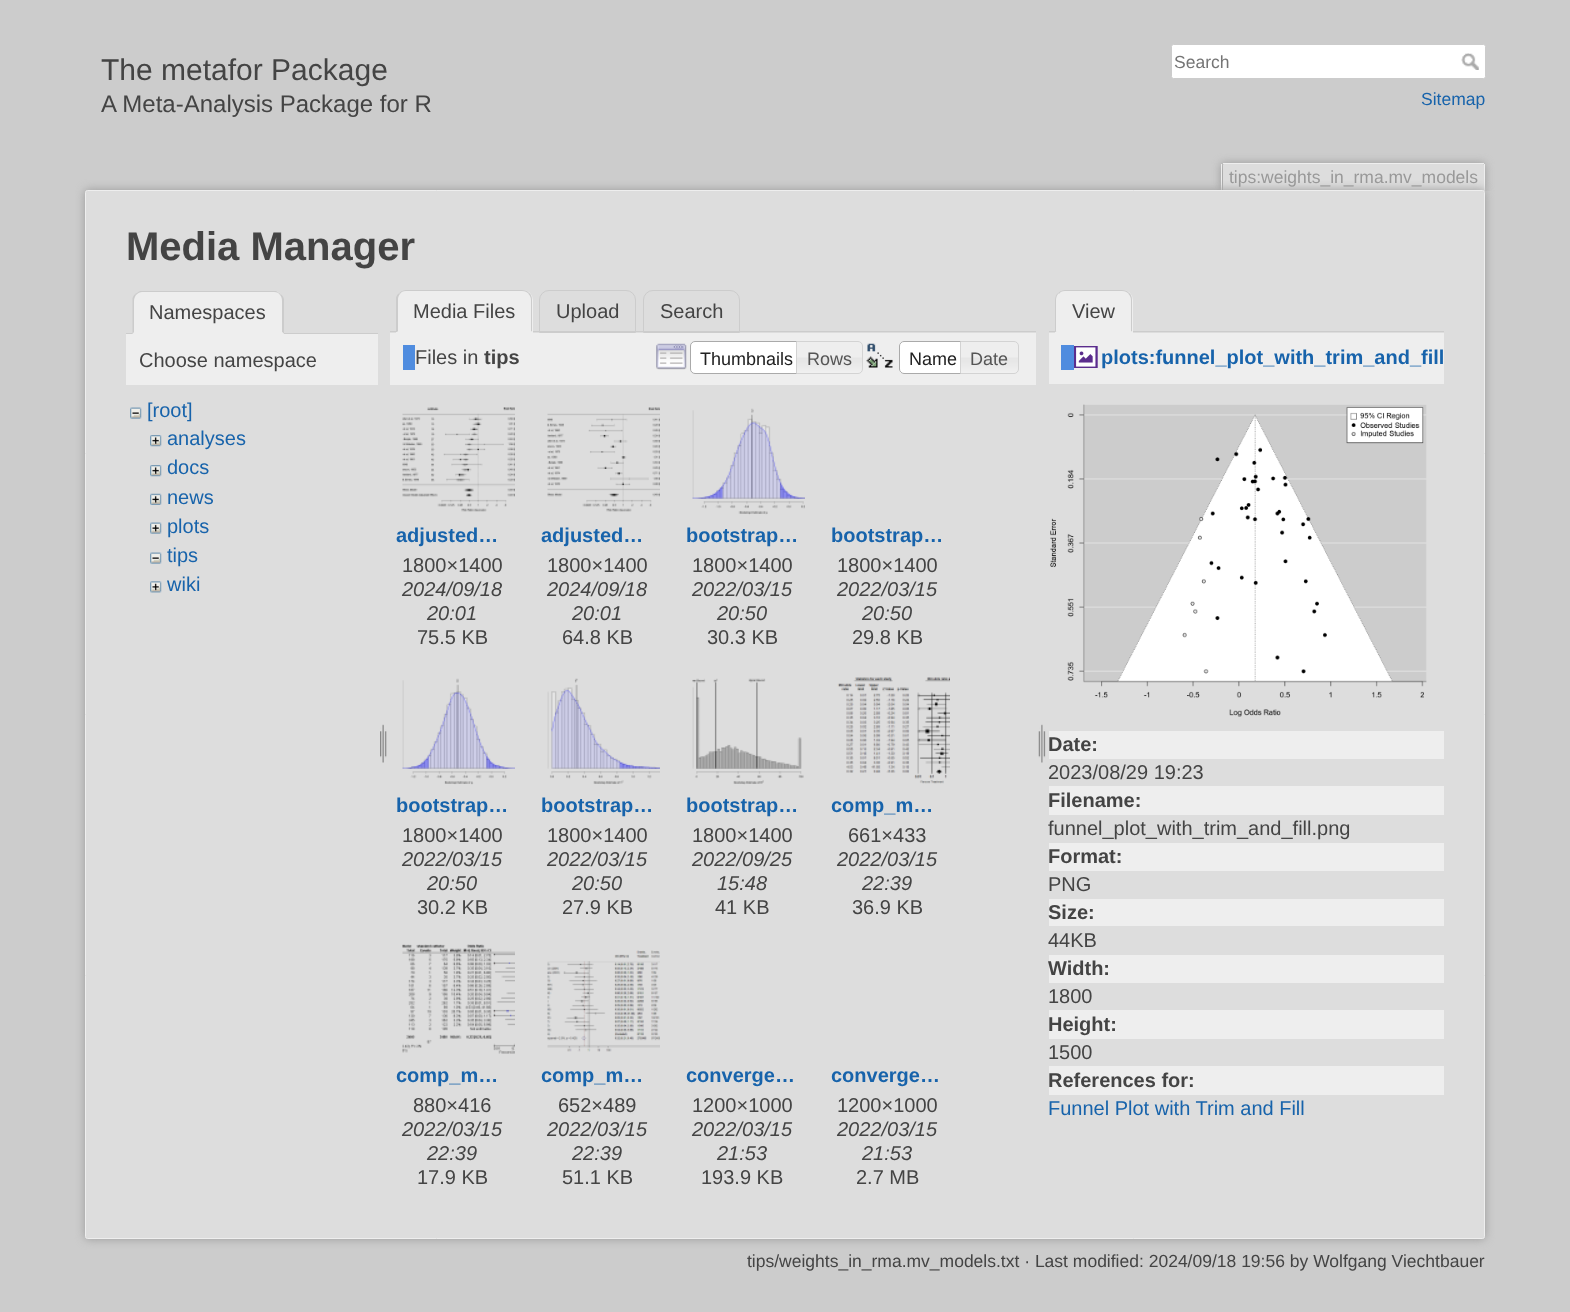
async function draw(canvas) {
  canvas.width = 1570;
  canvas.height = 1312;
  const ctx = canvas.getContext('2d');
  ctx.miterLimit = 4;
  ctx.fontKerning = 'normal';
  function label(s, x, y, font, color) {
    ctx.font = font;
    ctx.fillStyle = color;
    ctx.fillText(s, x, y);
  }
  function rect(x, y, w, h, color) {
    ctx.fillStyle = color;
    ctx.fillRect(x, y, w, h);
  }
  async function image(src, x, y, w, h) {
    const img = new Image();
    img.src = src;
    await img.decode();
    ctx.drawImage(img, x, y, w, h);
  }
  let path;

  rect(0, 0, 1570, 1312, '#ccc');
  label('The metafor Package', 101, 80, '30px Liberation Sans', '#444');
  label('A Meta-Analysis Package for R', 101, 112, '24px Liberation Sans', '#444');
  ctx.fillStyle = '#fff';
  ctx.beginPath();
  ctx.roundRect(1171.5, 44.5, 314, 34, 2);
  ctx.fill();
  ctx.strokeStyle = '#ccc';
  ctx.stroke();
  label('Search', 1174, 68, '17.5px Liberation Sans', '#757575');
  await image('assets/img1.png', 1461, 53, 18, 17);
  label('Sitemap', 1421, 105, '17.5px Liberation Sans', '#1763ab');
  ctx.save();
  ctx.beginPath();
  ctx.rect(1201, 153, 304, 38);
  ctx.clip();
  ctx.fillStyle = '#999';
  ctx.filter = 'blur(4.5px)';
  ctx.beginPath();
  ctx.roundRect(1221, 163, 264, 28, 2.5);
  ctx.fill();
  ctx.filter = 'none';
  ctx.restore();
  ctx.fillStyle = '#ddd';
  ctx.beginPath();
  ctx.roundRect(1223, 164, 261, 27, [1, 1, 0, 0]);
  ctx.fill();
  rect(1223, 163, 261, 1, '#eee');
  rect(1484, 164, 1, 27, '#eee');
  rect(1221, 164, 1, 27, '#eee');
  label('tips:weights_in_rma.mv_models', 1229, 183, '17.5px Liberation Sans', '#999');
  ctx.filter = 'blur(5px)';
  ctx.beginPath();
  ctx.roundRect(85, 190, 1400, 1049, 2.5);
  ctx.fill();
  ctx.filter = 'none';
  ctx.fillStyle = '#ddd';
  ctx.beginPath();
  ctx.roundRect(85.5, 190.5, 1399, 1048, 2);
  ctx.fill();
  ctx.strokeStyle = '#eee';
  ctx.stroke();
  label('Media Manager', 126, 260, 'bold 40px Liberation Sans', '#444');
  rect(126, 333, 252, 1, '#ccc');
  ctx.fillStyle = '#eee';
  ctx.beginPath();
  ctx.roundRect(133, 291, 151, 43, [10, 10, 0, 0]);
  ctx.fill();
  ctx.fillStyle = '#ccc';
  path = new Path2D('M142 292C140 292 138 293 136 295L135 294C137 293 138 292 140 291H276C278 292 279 293 281 294L280 295C279 293 277 292 274 292Z');
  ctx.fill(path);
  path = new Path2D('M281 294C282.5 295.5 283.5 297 284 299V334L282 332V301C282 298.5 281.5 296.5 280 295Z');
  ctx.fill(path);
  ctx.fillStyle = '#eee';
  path = new Path2D('M284 334L282 332H134L132 334Z');
  ctx.fill(path);
  ctx.fillStyle = '#ccc';
  path = new Path2D('M132.5 334V298C133 296.5 134 295 135.5 294L136 295C135 296.5 134 298.5 134 301V332Z');
  ctx.fill(path);
  label('Namespaces', 149, 319, '20px Liberation Sans', '#444');
  rect(126, 334, 252, 51, '#eee');
  label('Choose namespace', 139, 367, '20px Liberation Sans', '#444');
  await image('assets/img2.png', 130, 407, 12, 12);
  label('[root]', 147, 417, '20px Liberation Sans', '#1763ab');
  await image('assets/img3.png', 150, 435, 12, 12);
  label('analyses', 167, 445, '20px Liberation Sans', '#1763ab');
  await image('assets/img3.png', 150, 465, 12, 12);
  label('docs', 167, 474, '20px Liberation Sans', '#1763ab');
  await image('assets/img4.png', 150, 493, 12, 12);
  label('news', 167, 504, '20px Liberation Sans', '#1763ab');
  await image('assets/img5.png', 150, 522, 12, 12);
  label('plots', 167, 533, '20px Liberation Sans', '#1763ab');
  await image('assets/img2.png', 150, 552, 12, 12);
  label('tips', 167, 562, '20px Liberation Sans', '#1763ab');
  await image('assets/img6.png', 150, 581, 12, 12);
  label('wiki', 167, 591, '20px Liberation Sans', '#1763ab');
  await image('assets/img7.png', 380, 724, 7, 39);
  ctx.beginPath();
  ctx.roundRect(539.5, 290.5, 96, 42, [9.5, 9.5, 0, 0]);
  ctx.strokeStyle = '#ccc';
  ctx.stroke();
  ctx.beginPath();
  ctx.roundRect(643.5, 290.5, 96, 42, [9.5, 9.5, 0, 0]);
  ctx.stroke();
  rect(390, 331, 646, 1, '#ccc');
  ctx.fillStyle = '#eee';
  ctx.beginPath();
  ctx.roundRect(396, 290, 137, 43, [10, 10, 0, 0]);
  ctx.fill();
  ctx.fillStyle = '#ccc';
  path = new Path2D('M406 290C403 290 401 291 399 293L400 294C401 292 403 291 406 291H522C525 291 527 292 529 294V293C528 291 525 290 522 290Z');
  ctx.fill(path);
  path = new Path2D('M529.5 293C531 294.5 532 297 532 300V332L531 331V300C531 297.5 530 295.5 528.5 294Z');
  ctx.fill(path);
  ctx.fillStyle = '#eee';
  path = new Path2D('M532 332L531 331H398L397 332Z');
  ctx.fill(path);
  ctx.fillStyle = '#ccc';
  path = new Path2D('M396 297.5C396.5 296 397.5 294 399 293L400 294C398.5 295.5 398 297.5 398 300V331L397 332H396Z');
  ctx.fill(path);
  label('Media Files', 413, 318, '20px Liberation Sans', '#444');
  label('Upload', 556, 318, '20px Liberation Sans', '#444');
  label('Search', 660, 318, '20px Liberation Sans', '#444');
  rect(390, 333, 646, 52, '#eee');
  rect(403, 345, 12, 25, '#4f8cdf');
  label('Files in', 415, 364, '20px Liberation Sans', '#444');
  label('tips', 484, 364, 'bold 20px Liberation Sans', '#444');
  await image('assets/img8.png', 656, 343, 31, 27);
  ctx.fillStyle = '#fff';
  ctx.beginPath();
  ctx.roundRect(690.5, 341.5, 113, 32, [4.5, 0, 0, 4.5]);
  ctx.fill();
  ctx.strokeStyle = '#aaa';
  ctx.stroke();
  label('Thumbnails', 700, 365, '18px Liberation Sans', '#212121');
  await image('assets/img9.png', 797, 342, 65, 32);
  ctx.beginPath();
  ctx.roundRect(796.5, 341.5, 66, 32, [0, 4.5, 4.5, 0]);
  ctx.strokeStyle = '#d3d3d3';
  ctx.stroke();
  label('Rows', 807, 365, '18px Liberation Sans', '#555');
  await image('assets/img10.png', 866, 343, 27, 25);
  ctx.fillStyle = '#fff';
  ctx.beginPath();
  ctx.roundRect(899, 341, 69, 33, [5, 0, 0, 5]);
  ctx.fill();
  await image('assets/img11.png', 899, 343, 2, 30);
  ctx.beginPath();
  ctx.roundRect(899.5, 341.5, 68, 32, [4.5, 0, 0, 4.5]);
  ctx.strokeStyle = '#aaa';
  ctx.stroke();
  label('Name', 909, 365, '18px Liberation Sans', '#212121');
  await image('assets/img12.png', 961, 341, 58, 33);
  ctx.beginPath();
  ctx.roundRect(960.5, 341.5, 58, 32, [0, 4.5, 4.5, 0]);
  ctx.strokeStyle = '#d3d3d3';
  ctx.stroke();
  label('Date', 970, 365, '18px Liberation Sans', '#555');
  await image('assets/img13.png', 402, 407, 113, 105);
  label('adjusted…', 396, 542, 'bold 20px Liberation Sans', '#1763ab');
  label('1800×1400', 402, 572, '20px Liberation Sans', '#444');
  label('2024/09/18', 402, 596, 'italic 20px Liberation Sans', '#444');
  label('20:01', 427, 620, 'italic 20px Liberation Sans', '#444');
  label('75.5 KB', 417, 644, '20px Liberation Sans', '#444');
  await image('assets/img14.png', 547, 407, 113, 105);
  label('adjusted…', 541, 542, 'bold 20px Liberation Sans', '#1763ab');
  label('1800×1400', 547, 572, '20px Liberation Sans', '#444');
  label('2024/09/18', 547, 596, 'italic 20px Liberation Sans', '#444');
  label('20:01', 572, 620, 'italic 20px Liberation Sans', '#444');
  label('64.8 KB', 562, 644, '20px Liberation Sans', '#444');
  await image('assets/img15.png', 692, 408, 113, 107);
  label('bootstrap…', 686, 542, 'bold 20px Liberation Sans', '#1763ab');
  label('1800×1400', 692, 572, '20px Liberation Sans', '#444');
  label('2022/03/15', 692, 596, 'italic 20px Liberation Sans', '#444');
  label('20:50', 717, 620, 'italic 20px Liberation Sans', '#444');
  label('30.3 KB', 707, 644, '20px Liberation Sans', '#444');
  label('bootstrap…', 831, 542, 'bold 20px Liberation Sans', '#1763ab');
  label('1800×1400', 837, 572, '20px Liberation Sans', '#444');
  label('2022/03/15', 837, 596, 'italic 20px Liberation Sans', '#444');
  label('20:50', 862, 620, 'italic 20px Liberation Sans', '#444');
  label('29.8 KB', 852, 644, '20px Liberation Sans', '#444');
  await image('assets/img16.png', 402, 678, 113, 107);
  label('bootstrap…', 396, 812, 'bold 20px Liberation Sans', '#1763ab');
  label('1800×1400', 402, 842, '20px Liberation Sans', '#444');
  label('2022/03/15', 402, 866, 'italic 20px Liberation Sans', '#444');
  label('20:50', 427, 890, 'italic 20px Liberation Sans', '#444');
  label('30.2 KB', 417, 914, '20px Liberation Sans', '#444');
  await image('assets/img17.png', 547, 678, 113, 107);
  label('bootstrap…', 541, 812, 'bold 20px Liberation Sans', '#1763ab');
  label('1800×1400', 547, 842, '20px Liberation Sans', '#444');
  label('2022/03/15', 547, 866, 'italic 20px Liberation Sans', '#444');
  label('20:50', 572, 890, 'italic 20px Liberation Sans', '#444');
  label('27.9 KB', 562, 914, '20px Liberation Sans', '#444');
  await image('assets/img18.png', 692, 678, 112, 107);
  label('bootstrap…', 686, 812, 'bold 20px Liberation Sans', '#1763ab');
  label('1800×1400', 692, 842, '20px Liberation Sans', '#444');
  label('2022/09/25', 692, 866, 'italic 20px Liberation Sans', '#444');
  label('15:48', 717, 890, 'italic 20px Liberation Sans', '#444');
  label('41 KB', 715, 914, '20px Liberation Sans', '#444');
  await image('assets/img19.png', 837, 677, 113, 107);
  label('comp_m…', 831, 812, 'bold 20px Liberation Sans', '#1763ab');
  label('661×433', 848, 842, '20px Liberation Sans', '#444');
  label('2022/03/15', 837, 866, 'italic 20px Liberation Sans', '#444');
  label('22:39', 862, 890, 'italic 20px Liberation Sans', '#444');
  label('36.9 KB', 852, 914, '20px Liberation Sans', '#444');
  await image('assets/img20.png', 402, 944, 113, 110);
  label('comp_m…', 396, 1082, 'bold 20px Liberation Sans', '#1763ab');
  label('880×416', 413, 1112, '20px Liberation Sans', '#444');
  label('2022/03/15', 402, 1136, 'italic 20px Liberation Sans', '#444');
  label('22:39', 427, 1160, 'italic 20px Liberation Sans', '#444');
  label('17.9 KB', 417, 1184, '20px Liberation Sans', '#444');
  await image('assets/img21.png', 547, 950, 113, 102);
  label('comp_m…', 541, 1082, 'bold 20px Liberation Sans', '#1763ab');
  label('652×489', 558, 1112, '20px Liberation Sans', '#444');
  label('2022/03/15', 547, 1136, 'italic 20px Liberation Sans', '#444');
  label('22:39', 572, 1160, 'italic 20px Liberation Sans', '#444');
  label('51.1 KB', 562, 1184, '20px Liberation Sans', '#444');
  label('converge…', 686, 1082, 'bold 20px Liberation Sans', '#1763ab');
  label('1200×1000', 692, 1112, '20px Liberation Sans', '#444');
  label('2022/03/15', 692, 1136, 'italic 20px Liberation Sans', '#444');
  label('21:53', 717, 1160, 'italic 20px Liberation Sans', '#444');
  label('193.9 KB', 701, 1184, '20px Liberation Sans', '#444');
  label('converge…', 831, 1082, 'bold 20px Liberation Sans', '#1763ab');
  label('1200×1000', 837, 1112, '20px Liberation Sans', '#444');
  label('2022/03/15', 837, 1136, 'italic 20px Liberation Sans', '#444');
  label('21:53', 862, 1160, 'italic 20px Liberation Sans', '#444');
  label('2.7 MB', 856, 1184, '20px Liberation Sans', '#444');
  await image('assets/img22.png', 1038, 724, 8, 39);
  rect(1049, 331, 395, 1, '#ccc');
  ctx.fillStyle = '#eee';
  ctx.beginPath();
  ctx.roundRect(1055, 290, 78, 43, [10, 10, 0, 0]);
  ctx.fill();
  ctx.fillStyle = '#ccc';
  path = new Path2D('M1065 290C1062 290 1060 291 1058 293L1059 294C1060 292 1062 291 1065 291H1122C1125 291 1127 292 1129 294V293C1128 291 1125 290 1122 290Z');
  ctx.fill(path);
  path = new Path2D('M1129.5 293C1131 294.5 1132 297 1132 300V332L1131 331V300C1131 297.5 1130 295.5 1128.5 294Z');
  ctx.fill(path);
  ctx.fillStyle = '#eee';
  path = new Path2D('M1132 332L1131 331H1056V332Z');
  ctx.fill(path);
  ctx.fillStyle = '#ccc';
  path = new Path2D('M1055 300V332H1055.5L1056.5 331H1056V300C1056 297.5 1057 295 1058.5 293.5L1058 293C1056 294.5 1055 297 1055 300Z');
  ctx.fill(path);
  label('View', 1072, 318, '20px Liberation Sans', '#444');
  rect(1049, 333, 395, 51, '#eee');
  rect(1061, 345, 13, 25, '#4f8cdf');
  await image('assets/img23.png', 1074, 346, 24, 22);
  label('plots:funnel_plot_with_trim_and_fill', 1101, 364, 'bold 20px Liberation Sans', '#1763ab');
  await image('assets/img24.png', 1050, 404, 377, 313);
  rect(1049, 731, 395, 28, '#eee');
  label('Date:', 1048, 751, 'bold 20px Liberation Sans', '#444');
  label('2023/08/29 19:23', 1048, 779, '20px Liberation Sans', '#444');
  rect(1049, 786, 395, 29, '#eee');
  label('Filename:', 1048, 807, 'bold 20px Liberation Sans', '#444');
  label('funnel_plot_with_trim_and_fill.png', 1048, 835, '20px Liberation Sans', '#444');
  rect(1049, 843, 395, 28, '#eee');
  label('Format:', 1048, 863, 'bold 20px Liberation Sans', '#444');
  label('PNG', 1048, 891, '20px Liberation Sans', '#444');
  rect(1049, 899, 395, 27, '#eee');
  label('Size:', 1048, 919, 'bold 20px Liberation Sans', '#444');
  label('44KB', 1048, 947, '20px Liberation Sans', '#444');
  rect(1049, 955, 395, 28, '#eee');
  label('Width:', 1048, 975, 'bold 20px Liberation Sans', '#444');
  label('1800', 1048, 1003, '20px Liberation Sans', '#444');
  rect(1049, 1010, 395, 29, '#eee');
  label('Height:', 1048, 1031, 'bold 20px Liberation Sans', '#444');
  label('1500', 1048, 1059, '20px Liberation Sans', '#444');
  rect(1049, 1066, 395, 29, '#eee');
  label('References for:', 1048, 1087, 'bold 20px Liberation Sans', '#444');
  label('Funnel Plot with Trim and Fill', 1048, 1115, '20px Liberation Sans', '#1763ab');
  label('tips/weights_in_rma.mv_models.txt · Last modified: 2024/09/18 19:56 by Wolfgang Viechtbauer', 747, 1267, '17.5px Liberation Sans', '#444');
}

draw(document.querySelector('canvas'));
